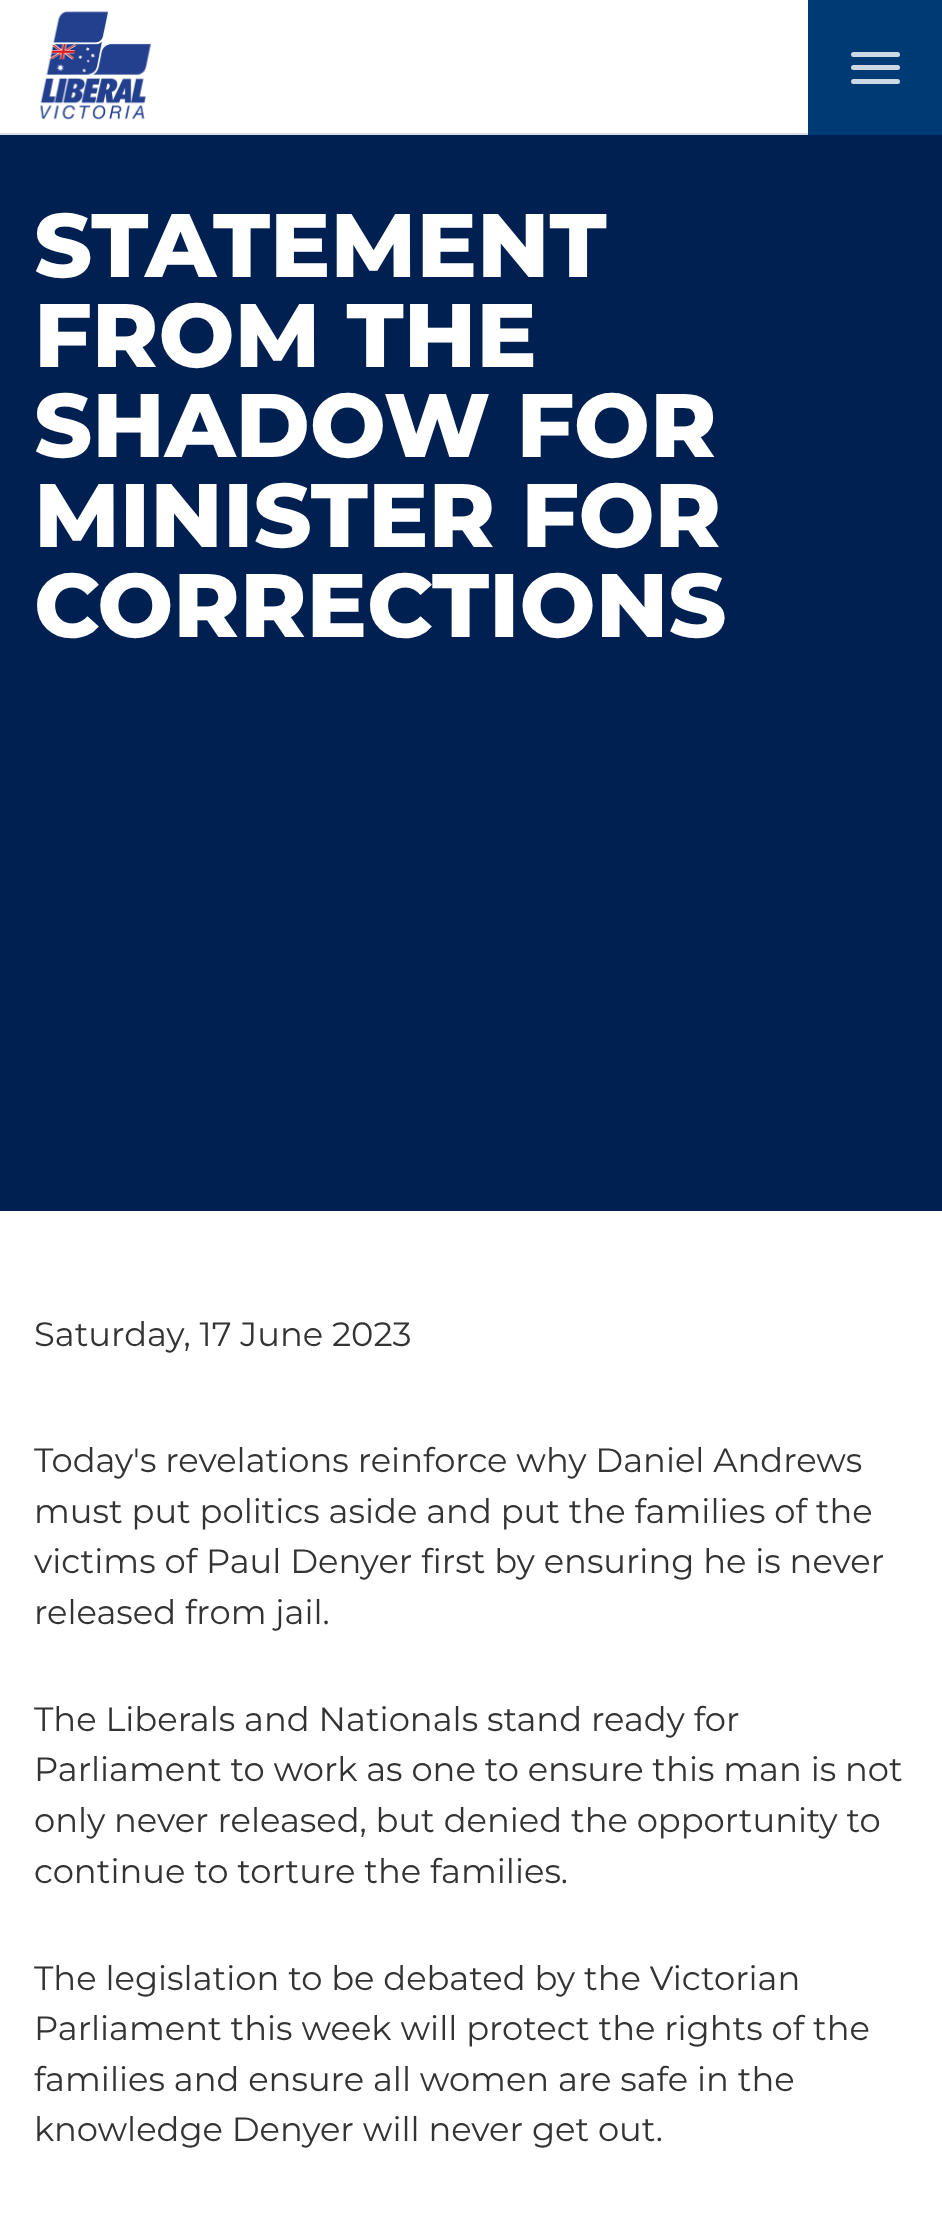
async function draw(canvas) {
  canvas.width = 942;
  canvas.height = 2228;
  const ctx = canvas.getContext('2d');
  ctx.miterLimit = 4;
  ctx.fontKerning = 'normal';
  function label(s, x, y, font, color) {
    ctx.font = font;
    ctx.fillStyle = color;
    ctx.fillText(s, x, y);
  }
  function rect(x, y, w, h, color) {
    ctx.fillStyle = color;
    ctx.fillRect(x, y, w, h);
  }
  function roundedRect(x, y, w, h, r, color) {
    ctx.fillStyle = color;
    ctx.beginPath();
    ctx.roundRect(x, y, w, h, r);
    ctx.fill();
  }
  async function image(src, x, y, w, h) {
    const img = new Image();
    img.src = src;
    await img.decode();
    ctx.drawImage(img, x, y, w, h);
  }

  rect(0, 0, 942, 2228, '#fff');
  await image('assets/img1.png', 40, 11, 111, 109);
  rect(808, 0, 134, 135, '#003a75');
  roundedRect(851, 52, 49, 5, 2.5, '#ccd8e3');
  roundedRect(851, 65, 49, 5, 2.5, '#ccd8e3');
  roundedRect(851, 79, 49, 5, 2.5, '#ccd8e3');
  rect(0, 135, 942, 1076, '#002052');
  rect(0, 133, 808, 2, '#d9dee5');
  label('STATEMENT', 34, 277, '800 90px Montserrat', '#fff');
  label('FROM THE', 34, 367, '800 90px Montserrat', '#fff');
  label('SHADOW FOR', 34, 457, '800 90px Montserrat', '#fff');
  label('MINISTER FOR', 34, 547, '800 90px Montserrat', '#fff');
  label('CORRECTIONS', 34, 637, '800 90px Montserrat', '#fff');
  label('Saturday, 17 June 2023', 34, 1346, '33.75px Montserrat', '#333');
  label('Today\'s revelations reinforce why Daniel Andrews', 34, 1472, '33.75px Montserrat', '#333');
  label('must put politics aside and put the families of the', 34, 1523, '33.75px Montserrat', '#333');
  label('victims of Paul Denyer first by ensuring he is never', 34, 1573, '33.75px Montserrat', '#333');
  label('released from jail.', 34, 1624, '33.75px Montserrat', '#333');
  label('The Liberals and Nationals stand ready for', 34, 1731, '33.75px Montserrat', '#333');
  label('Parliament to work as one to ensure this man is not', 34, 1781, '33.75px Montserrat', '#333');
  label('only never released, but denied the opportunity to', 34, 1832, '33.75px Montserrat', '#333');
  label('continue to torture the families.', 34, 1883, '33.75px Montserrat', '#333');
  label('The legislation to be debated by the Victorian', 34, 1990, '33.75px Montserrat', '#333');
  label('Parliament this week will protect the rights of the', 34, 2040, '33.75px Montserrat', '#333');
  label('families and ensure all women are safe in the', 34, 2091, '33.75px Montserrat', '#333');
  label('knowledge Denyer will never get out.', 34, 2141, '33.75px Montserrat', '#333');
}

draw(document.querySelector('canvas'));
